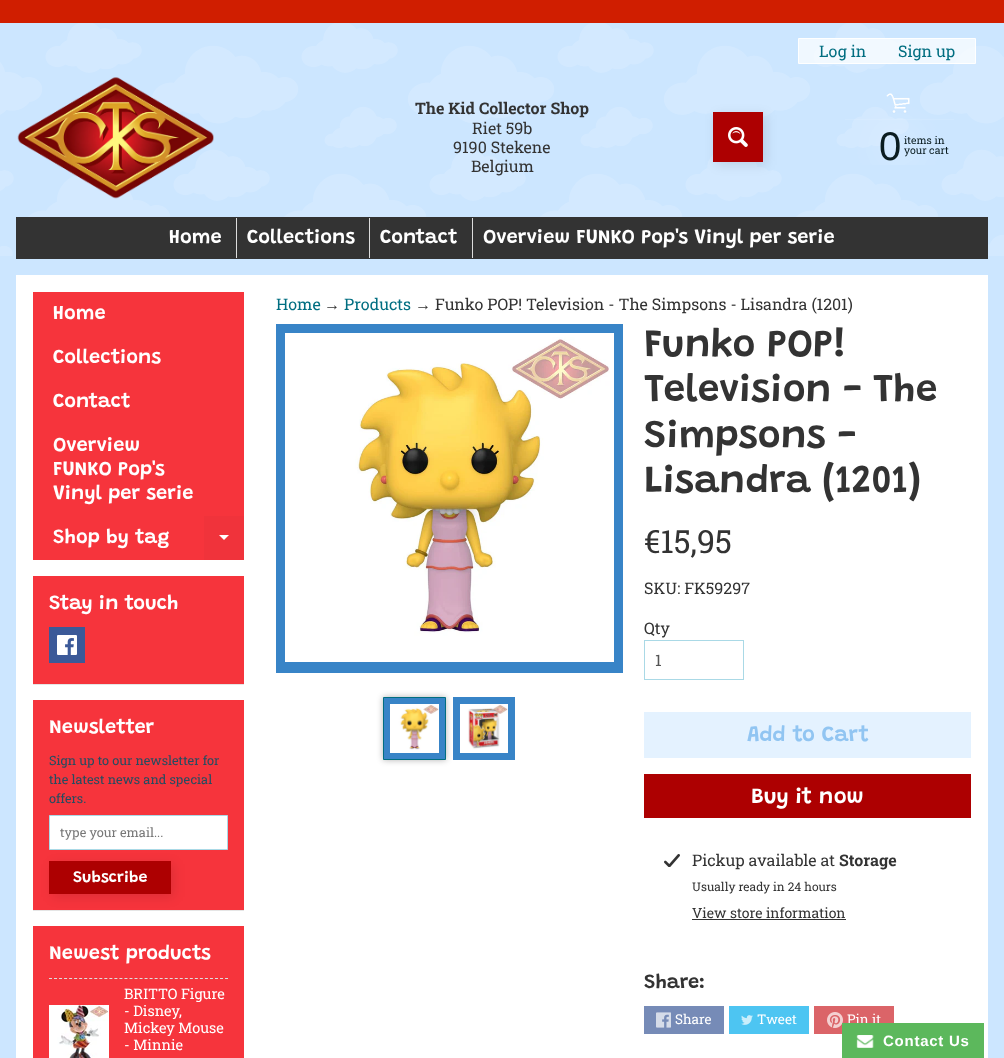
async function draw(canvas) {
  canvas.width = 1004;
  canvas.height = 1058;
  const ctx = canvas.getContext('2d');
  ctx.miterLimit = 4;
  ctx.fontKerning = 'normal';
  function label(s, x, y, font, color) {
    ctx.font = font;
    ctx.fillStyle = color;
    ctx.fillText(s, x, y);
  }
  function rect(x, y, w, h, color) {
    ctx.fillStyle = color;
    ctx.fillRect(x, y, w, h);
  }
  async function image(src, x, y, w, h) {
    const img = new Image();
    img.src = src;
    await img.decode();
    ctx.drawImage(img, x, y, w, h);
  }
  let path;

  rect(0, 0, 1004, 1058, '#cce6ff');
  await image('assets/img1.png', 0, 23, 1004, 233);
  rect(0, 0, 1004, 23, '#d01e00');
  await image('assets/img2.png', 17, 77, 197, 122);
  label('The Kid Collector Shop', 415, 114, 'bold 16px Roboto Slab', '#333');
  label('Riet 59b', 472, 134, '16px Roboto Slab', '#333');
  label('9190 Stekene', 453, 153, '16px Roboto Slab', '#333');
  label('Belgium', 471, 172, '16px Roboto Slab', '#333');
  ctx.fillStyle = '#ffffffb3';
  ctx.beginPath();
  ctx.rect(798.5, 38.5, 177, 25);
  ctx.fill();
  ctx.strokeStyle = '#fff';
  ctx.stroke();
  label('Log in', 819, 57, '16px Roboto Slab', '#016e81');
  label('Sign up', 898, 57, '16px Roboto Slab', '#016e81');
  ctx.fillStyle = '#0000001a';
  ctx.filter = 'blur(6px)';
  ctx.beginPath();
  ctx.rect(716, 115, 50, 50);
  ctx.fill();
  ctx.filter = 'none';
  rect(713, 112, 50, 50, '#ad0001');
  await image('assets/img3.png', 728, 127, 20, 20);
  await image('assets/img4.png', 845, 93, 109, 72);
  label('0', 879, 160, '40px Liberation Sans', '#0a1c20');
  label('items in', 904, 144, '10.5px Roboto Slab', '#0a1c20');
  label('your cart', 904, 154, '10.5px Roboto Slab', '#0a1c20');
  rect(16, 217, 972, 42, '#333');
  label('Home', 169, 243, '600 20px Grandstander', '#fff');
  rect(236, 218, 1, 40, '#ddd');
  label('Collections', 247, 243, '600 20px Grandstander', '#fff');
  rect(369, 218, 1, 40, '#ddd');
  label('Contact', 380, 243, '600 20px Grandstander', '#fff');
  rect(472, 218, 1, 40, '#ddd');
  label('Overview FUNKO Pop\'s Vinyl per serie', 483, 243, '600 20px Grandstander', '#fff');
  rect(16, 275, 972, 783, '#fff');
  rect(33, 292, 211, 224, '#f6343c');
  label('Home', 53, 319, '600 20px Grandstander', '#fff');
  label('Collections', 53, 363, '600 20px Grandstander', '#fff');
  label('Contact', 53, 407, '600 20px Grandstander', '#fff');
  label('Overview', 53, 451, '600 20px Grandstander', '#fff');
  label('FUNKO Pop\'s', 53, 475, '600 20px Grandstander', '#fff');
  label('Vinyl per serie', 53, 499, '600 20px Grandstander', '#fff');
  rect(33, 516, 171, 44, '#f6343c');
  label('Shop by tag', 53, 543, '600 20px Grandstander', '#fff');
  rect(204, 516, 40, 44, '#f0333b');
  ctx.fillStyle = '#fff';
  path = new Path2D('M219 535H229L224 540Z');
  ctx.fill(path);
  ctx.fillStyle = '#0000001a';
  ctx.filter = 'blur(0.5px)';
  ctx.beginPath();
  ctx.rect(33, 577, 211, 108);
  ctx.fill();
  ctx.filter = 'none';
  rect(33, 576, 211, 108, '#f6343c');
  label('Stay in touch', 49, 609, '600 20px Grandstander', '#fff');
  rect(49, 627, 36, 36, '#3b5998');
  await image('assets/img5.png', 57, 635, 20, 20);
  ctx.fillStyle = '#0000001a';
  ctx.filter = 'blur(0.5px)';
  ctx.beginPath();
  ctx.rect(33, 701, 211, 210);
  ctx.fill();
  ctx.filter = 'none';
  rect(33, 700, 211, 210, '#f6343c');
  label('Newsletter', 49, 733, '600 20px Grandstander', '#fff');
  label('Sign up to our newsletter for', 49, 765, '12.75px Roboto Slab', '#234d61');
  label('the latest news and special', 49, 784, '12.75px Roboto Slab', '#234d61');
  label('offers.', 49, 803, '12.75px Roboto Slab', '#234d61');
  ctx.fillStyle = '#fff';
  ctx.beginPath();
  ctx.rect(49.5, 815.5, 178, 34);
  ctx.fill();
  ctx.strokeStyle = '#aad9e6';
  ctx.stroke();
  label('type your email...', 60, 837, '12.75px Roboto Slab', '#777');
  ctx.fillStyle = '#0000001a';
  ctx.filter = 'blur(6px)';
  ctx.beginPath();
  ctx.rect(52, 864, 122, 33);
  ctx.fill();
  ctx.filter = 'none';
  rect(49, 861, 122, 33, '#ad0001');
  label('Subscribe', 73, 882, '600 16px Grandstander', '#fff');
  rect(33, 926, 211, 132, '#f6343c');
  label('Newest products', 49, 959, '600 20px Grandstander', '#fff');
  path = new Path2D('M49 978.5H228');
  ctx.strokeStyle = '#ddd';
  ctx.setLineDash([3, 2.03]);
  ctx.stroke(path);
  await image('assets/img6.png', 49, 1005, 60, 53);
  label('BRITTO Figure', 124, 999, '14.5px Roboto Slab', '#fff');
  label('- Disney,', 124, 1016, '14.5px Roboto Slab', '#fff');
  label('Mickey Mouse', 124, 1033, '14.5px Roboto Slab', '#fff');
  label('- Minnie', 124, 1050, '14.5px Roboto Slab', '#fff');
  label('Home', 276, 310, '16px Roboto Slab', '#016e81');
  label('→', 324, 310, '16px Liberation Serif', '#333');
  label('Products', 344, 310, '16px Roboto Slab', '#016e81');
  label('→', 415, 310, '16px Liberation Serif', '#333');
  label('Funko POP! Television - The Simpsons - Lisandra (1201)', 435, 310, '16px Roboto Slab', '#333');
  rect(276, 324, 347, 349, '#3884c7');
  await image('assets/img7.png', 285, 333, 329, 329);
  ctx.fillStyle = '#0000004d';
  ctx.filter = 'blur(3px)';
  ctx.beginPath();
  ctx.rect(383, 697, 63, 63);
  ctx.fill();
  ctx.filter = 'none';
  ctx.fillStyle = '#3884c7';
  ctx.beginPath();
  ctx.rect(383.5, 697.5, 62, 62);
  ctx.fill();
  ctx.strokeStyle = '#016e81';
  ctx.setLineDash([]);
  ctx.stroke();
  await image('assets/img8.png', 390, 704, 49, 49);
  rect(453, 697, 62, 63, '#3884c7');
  await image('assets/img9.png', 460, 704, 48, 49);
  label('Funko POP!', 644, 356, '600 39px Grandstander', '#333');
  label('Television - The', 644, 401, '600 39px Grandstander', '#333');
  label('Simpsons -', 644, 447, '600 39px Grandstander', '#333');
  label('Lisandra (1201)', 644, 492, '600 39px Grandstander', '#333');
  label('€15,95', 644, 553, '32px Roboto Slab', '#333');
  label('SKU: FK59297', 644, 594, '16px Roboto Slab', '#333');
  label('Qty', 644, 634, '16px Roboto Slab', '#333');
  ctx.strokeStyle = '#aad9e6';
  ctx.strokeRect(644.5, 640.5, 99, 39);
  label('1', 655, 666, '16px Roboto Slab', '#555');
  rect(644, 712, 327, 46, '#e4f2ff');
  label('Add to Cart', 747, 741, '600 22px Grandstander', '#91c5f2');
  rect(644, 774, 327, 44, '#ad0001');
  label('Buy it now', 751, 803, '600 22px Grandstander', '#fff');
  await image('assets/img10.png', 664, 854, 16, 13);
  label('Pickup available at', 692, 866, '16px Roboto Slab', '#333');
  label('Storage', 839, 866, 'bold 16px Roboto Slab', '#333');
  label('Usually ready in 24 hours', 692, 891, '12px Roboto Slab', '#333');
  label('View store information', 692, 918, '14px Roboto Slab', '#333');
  rect(692, 919, 154, 1, '#333');
  label('Share:', 644, 988, '600 20px Grandstander', '#333');
  rect(644, 1006, 80, 28, '#768bb7');
  await image('assets/img11.png', 656, 1012, 15, 16);
  label('Share', 675, 1024, '13.5px Roboto Slab', '#fff');
  rect(729, 1006, 80, 28, '#4dc5f2');
  await image('assets/img12.png', 741, 1015, 12, 10);
  label('Tweet', 757, 1024, '13.5px Roboto Slab', '#fff');
  rect(814, 1006, 80, 28, '#db6468');
  await image('assets/img13.png', 827, 1012, 16, 16);
  label('Pin it', 847, 1024, '13.5px Roboto Slab', '#fff');
  rect(842, 1023, 142, 35, '#5cb85c');
  await image('assets/img14.png', 856, 1035, 18, 13);
  ctx.letterSpacing = '0.75px';
  label('Contact Us', 883, 1046, 'bold 15px Liberation Sans', '#fff');
}

draw(document.querySelector('canvas'));
